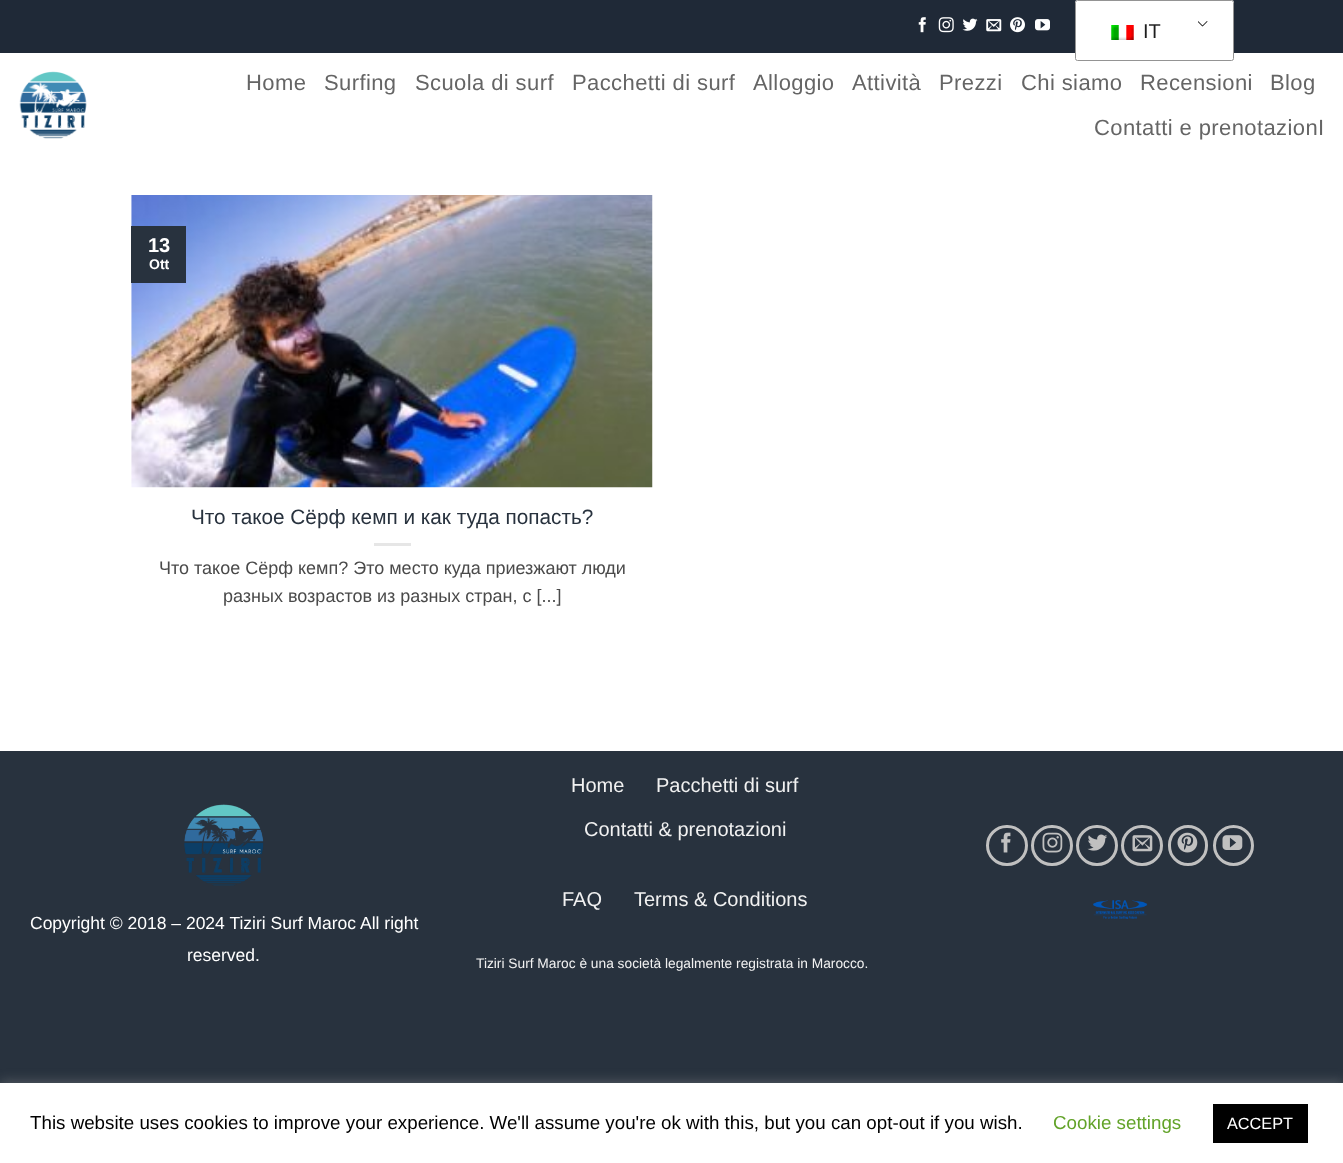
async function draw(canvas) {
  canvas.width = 1343;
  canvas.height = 1163;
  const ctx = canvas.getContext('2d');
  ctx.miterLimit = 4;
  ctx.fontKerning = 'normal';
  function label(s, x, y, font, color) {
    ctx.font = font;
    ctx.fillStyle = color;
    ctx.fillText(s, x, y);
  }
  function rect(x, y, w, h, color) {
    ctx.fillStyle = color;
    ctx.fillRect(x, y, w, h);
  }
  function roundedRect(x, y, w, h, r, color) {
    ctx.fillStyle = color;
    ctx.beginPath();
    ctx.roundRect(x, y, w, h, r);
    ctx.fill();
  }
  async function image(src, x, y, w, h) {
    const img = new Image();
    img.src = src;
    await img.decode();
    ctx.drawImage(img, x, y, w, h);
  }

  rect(0, 0, 1343, 1163, '#28323e');
  rect(0, 53, 1343, 698, '#fff');
  rect(0, 0, 1343, 53, '#1f2937');
  await image('assets/img1.png', 918, 17, 8, 16);
  await image('assets/img2.png', 938, 17, 16, 16);
  await image('assets/img3.png', 962, 18, 16, 13);
  await image('assets/img4.png', 986, 19, 16, 13);
  await image('assets/img5.png', 1010, 17, 15, 16);
  await image('assets/img6.png', 1035, 19, 15, 12);
  roundedRect(1075, 0, 159, 61, 2.5, '#fff');
  await image('assets/img7.png', 1198, 21, 10, 6);
  ctx.beginPath();
  ctx.roundRect(1075.5, 0.5, 158, 60, 2);
  ctx.strokeStyle = '#949494';
  ctx.stroke();
  await image('assets/img8.png', 1111, 25, 23, 15);
  label('IT', 1143, 38, '20px Liberation Sans', '#1e1e1e');
  await image('assets/img9.png', 19, 71, 68, 68);
  ctx.letterSpacing = '0.4px';
  label('Home', 246, 90, '22px Liberation Sans', '#656565');
  label('Surfing', 324, 90, '22px Liberation Sans', '#656565');
  label('Scuola di surf', 415, 90, '22px Liberation Sans', '#656565');
  label('Pacchetti di surf', 572, 90, '22px Liberation Sans', '#656565');
  label('Alloggio', 753, 90, '22px Liberation Sans', '#656565');
  label('Attività', 852, 90, '22px Liberation Sans', '#656565');
  label('Prezzi', 939, 90, '22px Liberation Sans', '#656565');
  label('Chi siamo', 1021, 90, '22px Liberation Sans', '#656565');
  label('Recensioni', 1140, 90, '22px Liberation Sans', '#656565');
  label('Blog', 1270, 90, '22px Liberation Sans', '#656565');
  label('Contatti e prenotazionI', 1094, 135, '22px Liberation Sans', '#656565');
  await image('assets/img10.png', 131, 195, 522, 293);
  rect(131, 226, 55, 57, '#28323e');
  ctx.letterSpacing = '0px';
  label('13', 148, 252, 'bold 20px Liberation Sans', '#fff');
  label('Ott', 149, 269, 'bold 14px Liberation Sans', '#fff');
  label('Что такое Сёрф кемп и как туда попасть?', 191, 524, '20.75px Liberation Sans', '#28323e');
  rect(374, 543, 37, 3, '#e6e6e6');
  label('Что такое Сёрф кемп? Это место куда приезжают люди', 159, 574, '18px Liberation Sans', '#4a4a4a');
  label('разных возрастов из разных стран, с [...]', 223, 602, '18px Liberation Sans', '#4a4a4a');
  label('Home', 571, 792, '20px Liberation Sans', '#f1f1f1');
  label('Pacchetti di surf', 656, 792, '20px Liberation Sans', '#f1f1f1');
  label('Contatti & prenotazioni', 584, 836, '20px Liberation Sans', '#f1f1f1');
  label('FAQ', 562, 906, '20px Liberation Sans', '#f1f1f1');
  label('Terms & Conditions', 634, 906, '20px Liberation Sans', '#f1f1f1');
  label('Tiziri Surf Maroc è una società legalmente registrata in Marocco.', 476, 968, '13.75px Liberation Sans', '#f1f1f1');
  ctx.beginPath();
  ctx.roundRect(987.5, 826.5, 39, 38, 19);
  ctx.strokeStyle = '#c0c0c0';
  ctx.lineWidth = 3;
  ctx.stroke();
  await image('assets/img11.png', 1001, 832, 10, 21);
  ctx.beginPath();
  ctx.roundRect(1032.5, 826.5, 39, 38, 19);
  ctx.stroke();
  await image('assets/img12.png', 1042, 832, 21, 21);
  ctx.beginPath();
  ctx.roundRect(1077.5, 826.5, 39, 38, 19);
  ctx.stroke();
  await image('assets/img13.png', 1087, 834, 21, 17);
  ctx.beginPath();
  ctx.roundRect(1122.5, 826.5, 39, 38, 19);
  ctx.stroke();
  await image('assets/img14.png', 1132, 835, 21, 17);
  ctx.beginPath();
  ctx.roundRect(1169.5, 826.5, 37, 38, 18.5);
  ctx.stroke();
  await image('assets/img15.png', 1177, 832, 21, 21);
  ctx.beginPath();
  ctx.arc(1233.5, 845.5, 19, 0, 2 * Math.PI);
  ctx.stroke();
  await image('assets/img16.png', 1222, 835, 21, 15);
  await image('assets/img17.png', 1093, 900, 55, 19);
  await image('assets/img18.png', 184, 804, 80, 82);
  label('Copyright © 2018 – 2024 Tiziri Surf Maroc All right', 30, 929, '17.5px Liberation Sans', '#fff');
  label('reserved.', 187, 961, '17.5px Liberation Sans', '#fff');
  ctx.fillStyle = '#acabab4d';
  ctx.filter = 'blur(6px)';
  ctx.beginPath();
  ctx.rect(0, 1081, 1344, 82);
  ctx.fill();
  ctx.filter = 'none';
  rect(0, 1083, 1343, 80, '#fff');
  label('This website uses cookies to improve your experience. We\'ll assume you\'re ok with this, but you can opt-out if you wish.', 30, 1129, '18.75px Liberation Sans', '#000');
  label('Cookie settings', 1053, 1129, '18.75px Liberation Sans', '#62a329');
  rect(1213, 1104, 95, 39, '#000');
  label('ACCEPT', 1227, 1129, '16.25px Liberation Sans', '#fff');
}

draw(document.querySelector('canvas'));
